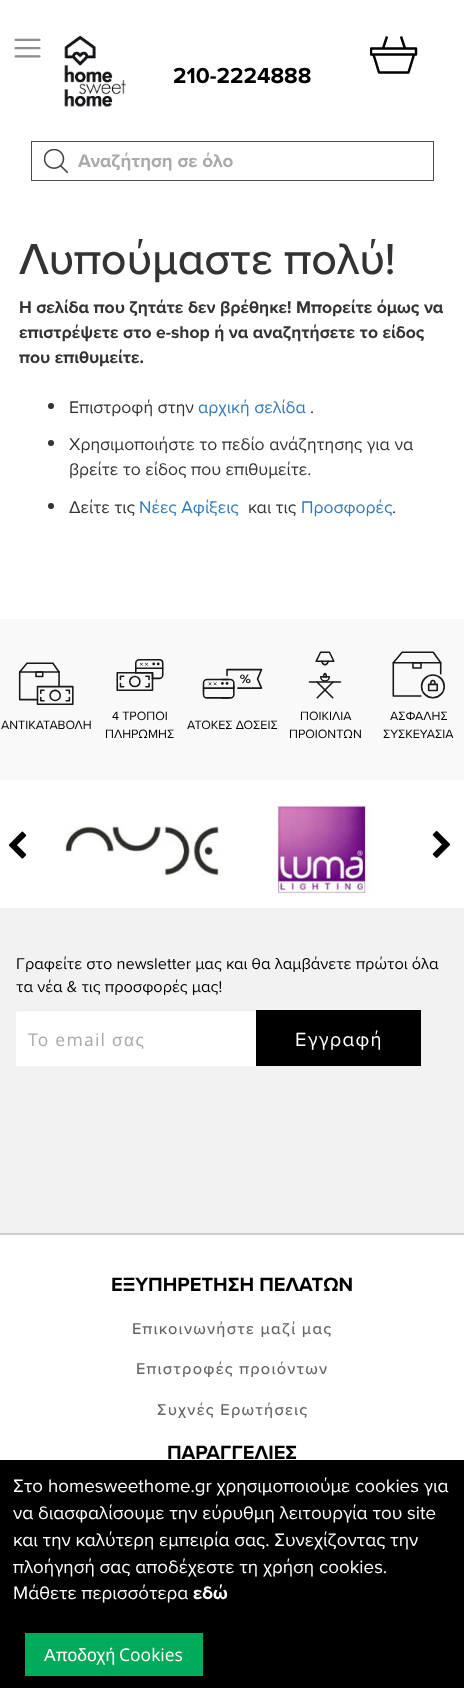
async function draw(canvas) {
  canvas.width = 464;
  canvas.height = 1688;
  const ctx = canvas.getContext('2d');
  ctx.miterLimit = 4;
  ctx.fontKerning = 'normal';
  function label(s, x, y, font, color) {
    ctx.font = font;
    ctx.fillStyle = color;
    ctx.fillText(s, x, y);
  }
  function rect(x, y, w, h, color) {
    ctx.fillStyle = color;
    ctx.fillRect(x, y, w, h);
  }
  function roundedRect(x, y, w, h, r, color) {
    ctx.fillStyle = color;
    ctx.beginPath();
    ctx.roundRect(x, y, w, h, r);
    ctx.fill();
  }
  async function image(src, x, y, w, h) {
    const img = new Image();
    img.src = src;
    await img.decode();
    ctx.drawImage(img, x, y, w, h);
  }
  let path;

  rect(0, 0, 464, 1688, '#fff');
  await image('assets/img1.png', 14, 38, 27, 20);
  await image('assets/img2.png', 64, 35, 62, 72);
  ctx.save();
  ctx.beginPath();
  ctx.rect(370, 36, 48, 38);
  ctx.clip();
  path = new Path2D('M371 48.5H416V54.5H371Z');
  ctx.strokeStyle = '#000';
  ctx.lineWidth = 2.5;
  ctx.lineJoin = 'round';
  ctx.stroke(path);
  ctx.restore();
  path = new Path2D('M373.5 54.5L379 72.5H408.5L414 54.5M383 48.5L387 36.5M405 48.5L401 36.5');
  ctx.strokeStyle = '#000';
  ctx.lineWidth = 2.5;
  ctx.lineJoin = 'round';
  ctx.stroke(path);
  label('210-2224888', 173, 83, 'bold 22.5px Proxima Nova', '#000');
  ctx.strokeStyle = '#4b4b4b';
  ctx.lineWidth = 1;
  ctx.lineJoin = 'miter';
  ctx.strokeRect(31.5, 141.5, 402, 39);
  await image('assets/img3.png', 44, 149, 24, 24);
  label('Αναζήτηση σε όλο', 78, 167, 'bold 18.75px Proxima Nova', '#aaa');
  label('Λυπούμαστε πολύ!', 19, 274, '500 45px Proxima Nova', '#333');
  label('Η σελίδα που ζητάτε δεν βρέθηκε! Μπορείτε όμως να', 19, 313, 'bold 17.5px Proxima Nova', '#333');
  label('επιστρέψετε στο e-shop ή να αναζητήσετε το είδος', 19, 338, 'bold 17.5px Proxima Nova', '#333');
  label('που επιθυμείτε.', 19, 363, 'bold 17.5px Proxima Nova', '#333');
  ctx.beginPath();
  ctx.arc(51, 406, 3, 0, 2 * Math.PI);
  ctx.fill();
  label('Επιστροφή στην', 69, 413, '17.5px Proxima Nova', '#333');
  label('αρχική σελίδα', 198, 413, '17.5px Proxima Nova', '#337ab7');
  label('.', 310, 413, '17.5px Proxima Nova', '#333');
  ctx.beginPath();
  ctx.arc(51, 443, 3, 0, 2 * Math.PI);
  ctx.fill();
  label('Χρησιμοποιήστε το πεδίο ανάζητησης για να', 69, 450, '17.5px Proxima Nova', '#333');
  label('βρείτε το είδος που επιθυμείτε.', 69, 475, '17.5px Proxima Nova', '#333');
  ctx.beginPath();
  ctx.arc(51, 506, 3, 0, 2 * Math.PI);
  ctx.fill();
  label('Δείτε τις', 69, 513, '17.5px Proxima Nova', '#333');
  label('Νέες Αφίξεις', 139, 513, '17.5px Proxima Nova', '#337ab7');
  label('και τις', 248, 513, '17.5px Proxima Nova', '#333');
  label('Προσφορές', 301, 513, '17.5px Proxima Nova', '#337ab7');
  label('.', 392, 513, '17.5px Proxima Nova', '#333');
  rect(0, 619, 464, 161, '#f9f9f9');
  await image('assets/img4.png', 18, 662, 56, 43);
  label('ΑΝΤΙΚΑΤΑΒΟΛΗ', 1, 729, '12.5px Proxima Nova', '#000');
  await image('assets/img5.png', 116, 659, 48, 32);
  label('4 ΤΡΟΠΟΙ', 112, 720, '12.5px Proxima Nova', '#000');
  label('ΠΛΗΡΩΜΗΣ', 105, 738, '12.5px Proxima Nova', '#000');
  await image('assets/img6.png', 202, 668, 61, 31);
  label('ΑΤΟΚΕΣ ΔΟΣΕΙΣ', 187, 729, '12.5px Proxima Nova', '#000');
  await image('assets/img7.png', 308, 651, 34, 48);
  label('ΠΟΙΚΙΛΙΑ', 300, 720, '12.5px Proxima Nova', '#000');
  label('ΠΡΟΙΟΝΤΩΝ', 289, 738, '12.5px Proxima Nova', '#000');
  await image('assets/img8.png', 392, 651, 53, 48);
  label('ΑΣΦΑΛΗΣ', 390, 720, '12.5px Proxima Nova', '#000');
  label('ΣΥΣΚΕΥΑΣΙΑ', 383, 738, '12.5px Proxima Nova', '#000');
  await image('assets/img9.png', 64, 826, 156, 50);
  await image('assets/img10.png', 271, 805, 101, 90);
  await image('assets/img11.png', 8, 831, 19, 28);
  await image('assets/img12.png', 432, 831, 19, 27);
  rect(0, 908, 464, 325, '#f2f2f2');
  rect(0, 1233, 464, 1, '#ccc');
  label('Γραφείτε στο newsletter μας και θα λαμβάνετε πρώτοι όλα', 16, 969, '16.25px Proxima Nova', '#000');
  label('τα νέα & τις προσφορές μας!', 16, 992, '16.25px Proxima Nova', '#000');
  roundedRect(16, 1010, 240, 56, 1, '#fff');
  ctx.fillStyle = '#00000012';
  path = new Path2D('M18 1011H255L256 1012C256 1011 256 1010 255 1010H17C16 1010 16 1011 16 1012Z');
  ctx.fill(path);
  ctx.letterSpacing = '1.25px';
  label('To email', 28, 1046, '17.5px Open Sans', '#aaa');
  label('σας', 112, 1046, '17.5px Liberation Sans', '#aaa');
  rect(256, 1010, 165, 56, '#000');
  label('Εγγραφή', 295, 1046, '20px Proxima Nova', '#fff');
  rect(0, 1234, 464, 1, '#cecece');
  ctx.letterSpacing = '0px';
  label('ΕΞΥΠΗΡΕΤΗΣΗ ΠΕΛΑΤΩΝ', 111, 1291, 'bold 20px Proxima Nova', '#000');
  ctx.letterSpacing = '1.25px';
  label('Επικοινωνήστε μαζί μας', 132, 1334, '500 16.25px Proxima Nova', '#666');
  label('Επιστροφές προιόντων', 136, 1374, '500 16.25px Proxima Nova', '#666');
  label('Συχνές Ερωτήσεις', 157, 1415, '500 16.25px Proxima Nova', '#666');
  ctx.letterSpacing = '0px';
  label('ΠΑΡΑΓΓΕΛΙΕΣ', 167, 1459, 'bold 20px Proxima Nova', '#000');
  rect(0, 1460, 464, 228, '#000');
  label('Στο homesweethome.gr χρησιμοποιούμε cookies για', 13, 1492, '18.75px Proxima Nova', '#fff');
  label('να διασφαλίσουμε την εύρυθμη λειτουργία του site', 13, 1519, '18.75px Proxima Nova', '#fff');
  label('και την καλύτερη εμπειρία σας. Συνεχίζοντας την', 13, 1546, '18.75px Proxima Nova', '#fff');
  label('πλοήγησή σας αποδέχεστε τη χρήση cookies.', 13, 1573, '18.75px Proxima Nova', '#fff');
  label('Μάθετε περισσότερα', 13, 1599, '18.75px Proxima Nova', '#fff');
  label('εδώ', 193, 1599, 'bold 18.75px Proxima Nova', '#fff');
  rect(25, 1633, 178, 43, '#00aa5b');
  label('Αποδοχή', 44, 1661, '17.5px Liberation Sans', '#fff');
  label('Cookies', 119, 1661, '17.5px Open Sans', '#fff');
}

draw(document.querySelector('canvas'));
